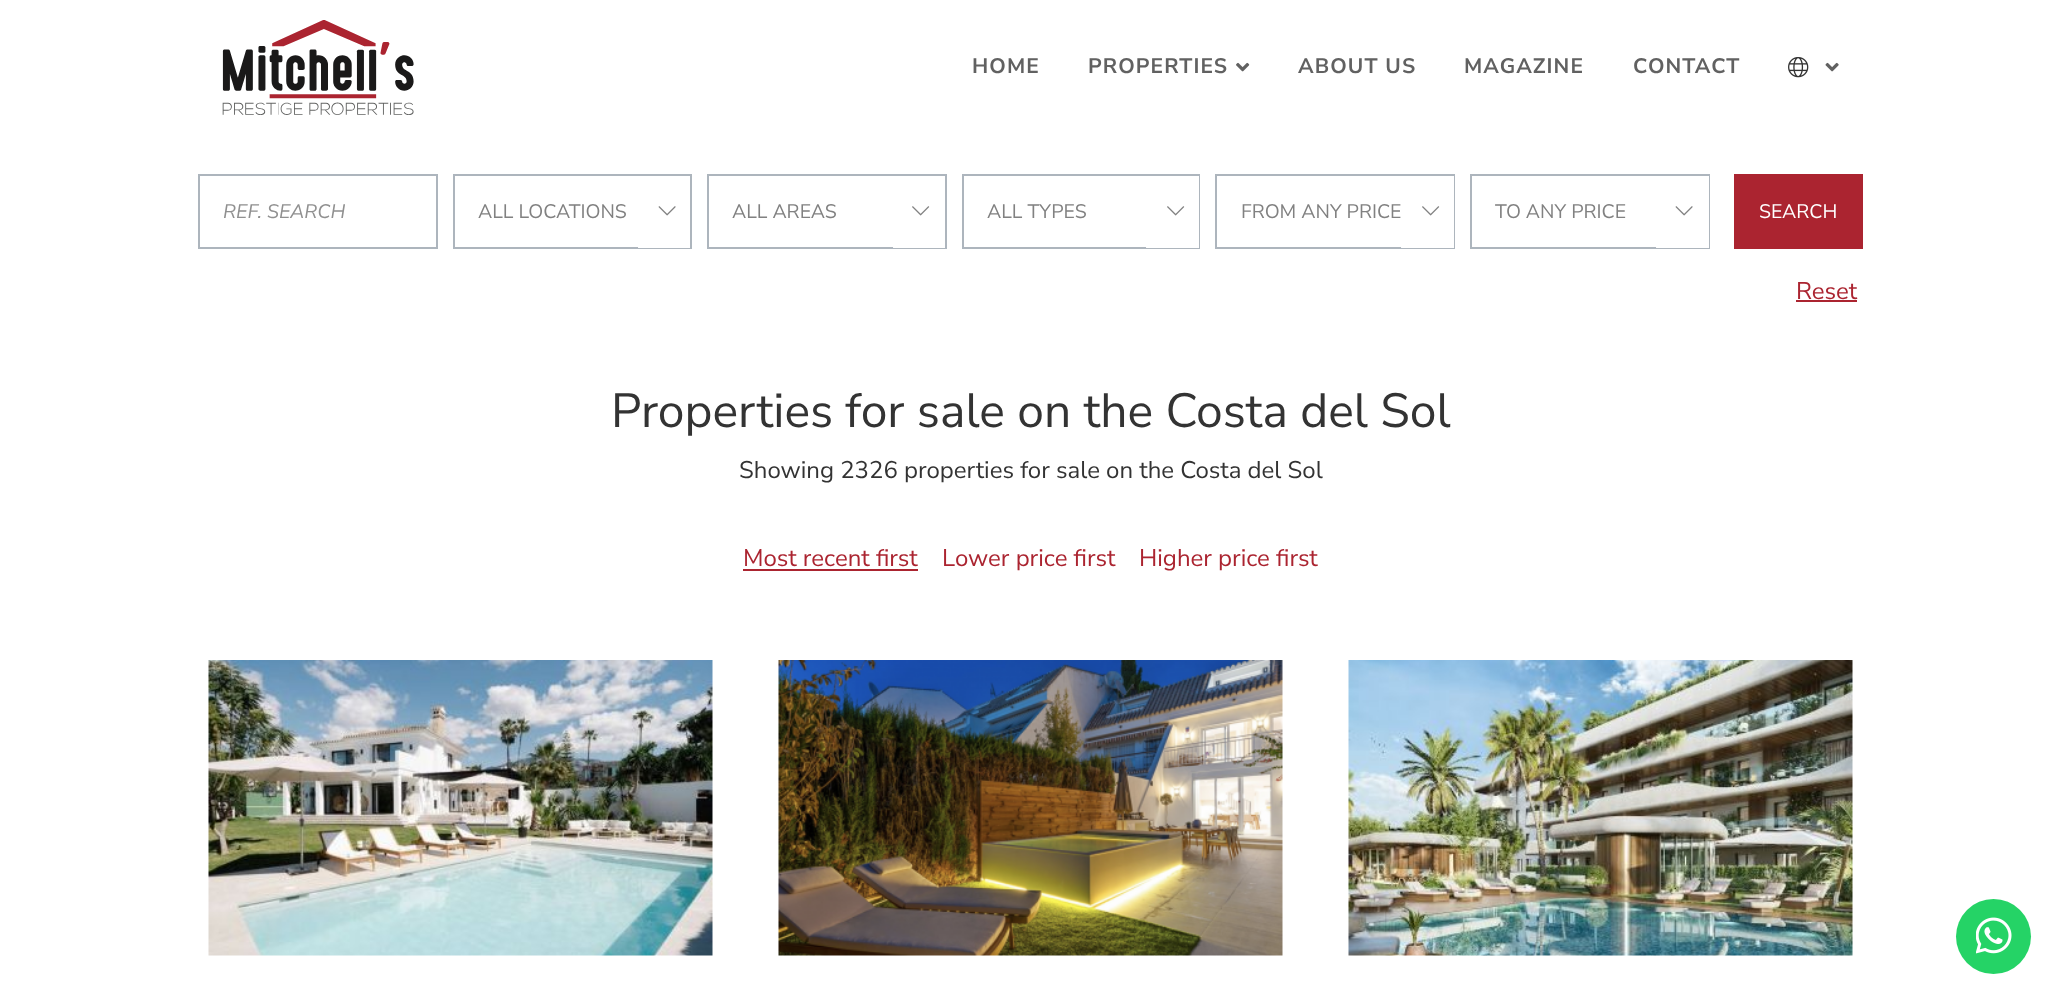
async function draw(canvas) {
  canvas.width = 2061;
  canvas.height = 1003;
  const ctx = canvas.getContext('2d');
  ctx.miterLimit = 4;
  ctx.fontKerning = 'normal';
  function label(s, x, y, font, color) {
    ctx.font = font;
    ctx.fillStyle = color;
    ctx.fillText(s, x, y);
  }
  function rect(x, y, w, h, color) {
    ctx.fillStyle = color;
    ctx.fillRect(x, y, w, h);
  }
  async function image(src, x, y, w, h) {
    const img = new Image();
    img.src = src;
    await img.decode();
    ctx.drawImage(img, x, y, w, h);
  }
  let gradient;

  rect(0, 0, 2061, 1003, '#fff');
  await image('assets/img1.png', 222, 20, 192, 95);
  ctx.letterSpacing = '1.1px';
  label('HOME', 972, 73, 'bold 21px Nunito Sans', '#616161');
  label('PROPERTIES', 1088, 73, 'bold 21px Nunito Sans', '#616161');
  await image('assets/img2.png', 1236, 62, 14, 10);
  label('ABOUT US', 1298, 73, 'bold 21px Nunito Sans', '#616161');
  label('MAGAZINE', 1464, 73, 'bold 21px Nunito Sans', '#616161');
  label('CONTACT', 1633, 73, 'bold 21px Nunito Sans', '#616161');
  await image('assets/img3.png', 1788, 57, 21, 21);
  await image('assets/img4.png', 1825, 62, 14, 10);
  ctx.strokeStyle = '#adb5bd';
  ctx.lineWidth = 2;
  ctx.strokeRect(199, 175, 238, 73);
  ctx.letterSpacing = '0px';
  label('REF. SEARCH', 223, 218, 'italic 19.5px Nunito Sans', '#909090');
  ctx.strokeRect(454, 175, 237, 73);
  label('ALL LOCATIONS', 478, 218, '19.5px Nunito Sans', '#818181');
  await image('assets/img5.png', 658, 206, 18, 10);
  gradient = ctx.createLinearGradient(631, 204, 697, 219);
  gradient.addColorStop(0, '#02002400');
  gradient.addColorStop(0, '#ffffff00');
  gradient.addColorStop(0.26, '#fff');
  ctx.fillStyle = gradient;
  ctx.fillRect(638, 247, 52, 1);
  ctx.strokeRect(708, 175, 238, 73);
  label('ALL AREAS', 732, 218, '19.5px Nunito Sans', '#818181');
  await image('assets/img6.png', 912, 206, 18, 10);
  gradient = ctx.createLinearGradient(886, 204, 952, 219);
  gradient.addColorStop(0, '#02002400');
  gradient.addColorStop(0, '#ffffff00');
  gradient.addColorStop(0.26, '#fff');
  ctx.fillStyle = gradient;
  ctx.fillRect(893, 247, 52, 1);
  ctx.strokeRect(963, 175, 236, 73);
  label('ALL TYPES', 987, 218, '19.5px Nunito Sans', '#818181');
  gradient = ctx.createLinearGradient(1139, 204, 1205, 219);
  gradient.addColorStop(0, '#02002400');
  gradient.addColorStop(0, '#ffffff00');
  gradient.addColorStop(0.26, '#fff');
  ctx.fillStyle = gradient;
  ctx.fillRect(1146, 176, 53, 72);
  await image('assets/img6.png', 1167, 206, 18, 10);
  ctx.strokeRect(1216, 175, 238, 73);
  label('FROM ANY PRICE', 1241, 218, '19.5px Nunito Sans', '#818181');
  gradient = ctx.createLinearGradient(1394, 204, 1460, 219);
  gradient.addColorStop(0, '#02002400');
  gradient.addColorStop(0, '#ffffff00');
  gradient.addColorStop(0.26, '#fff');
  ctx.fillStyle = gradient;
  ctx.fillRect(1401, 176, 53, 72);
  await image('assets/img6.png', 1422, 206, 18, 10);
  ctx.strokeRect(1471, 175, 238, 73);
  label('TO ANY PRICE', 1495, 218, '19.5px Nunito Sans', '#818181');
  gradient = ctx.createLinearGradient(1649, 204, 1715, 219);
  gradient.addColorStop(0, '#02002400');
  gradient.addColorStop(0, '#ffffff00');
  gradient.addColorStop(0.26, '#fff');
  ctx.fillStyle = gradient;
  ctx.fillRect(1656, 176, 53, 72);
  await image('assets/img5.png', 1675, 206, 18, 10);
  rect(1734, 174, 129, 75, '#ab2430');
  label('SEARCH', 1759, 218, '19.5px Nunito Sans', '#fff');
  label('Reset', 1796, 299, '24px Nunito Sans', '#ab2430');
  rect(1796, 300, 61, 2, '#ab2430');
  label('Properties for sale on the Costa del Sol', 611, 427, '48px Nunito Sans', '#333');
  label('Showing 2326 properties for sale on the Costa del Sol', 739, 478, '24px Nunito Sans', '#333');
  label('Most recent first', 743, 566, '24px Nunito Sans', '#ab2430');
  rect(743, 569, 175, 2, '#ab2430');
  label('Lower price first', 942, 566, '24px Nunito Sans', '#ab2430');
  label('Higher price first', 1139, 566, '24px Nunito Sans', '#ab2430');
  await image('assets/img7.png', 208, 660, 505, 296);
  await image('assets/img8.png', 778, 660, 505, 296);
  await image('assets/img9.png', 1348, 660, 505, 296);
  ctx.fillStyle = '#25d366';
  ctx.beginPath();
  ctx.arc(1993.5, 936.5, 37.5, 0, 2 * Math.PI);
  ctx.fill();
  await image('assets/img10.png', 1976, 917, 36, 37);
}

draw(document.querySelector('canvas'));
